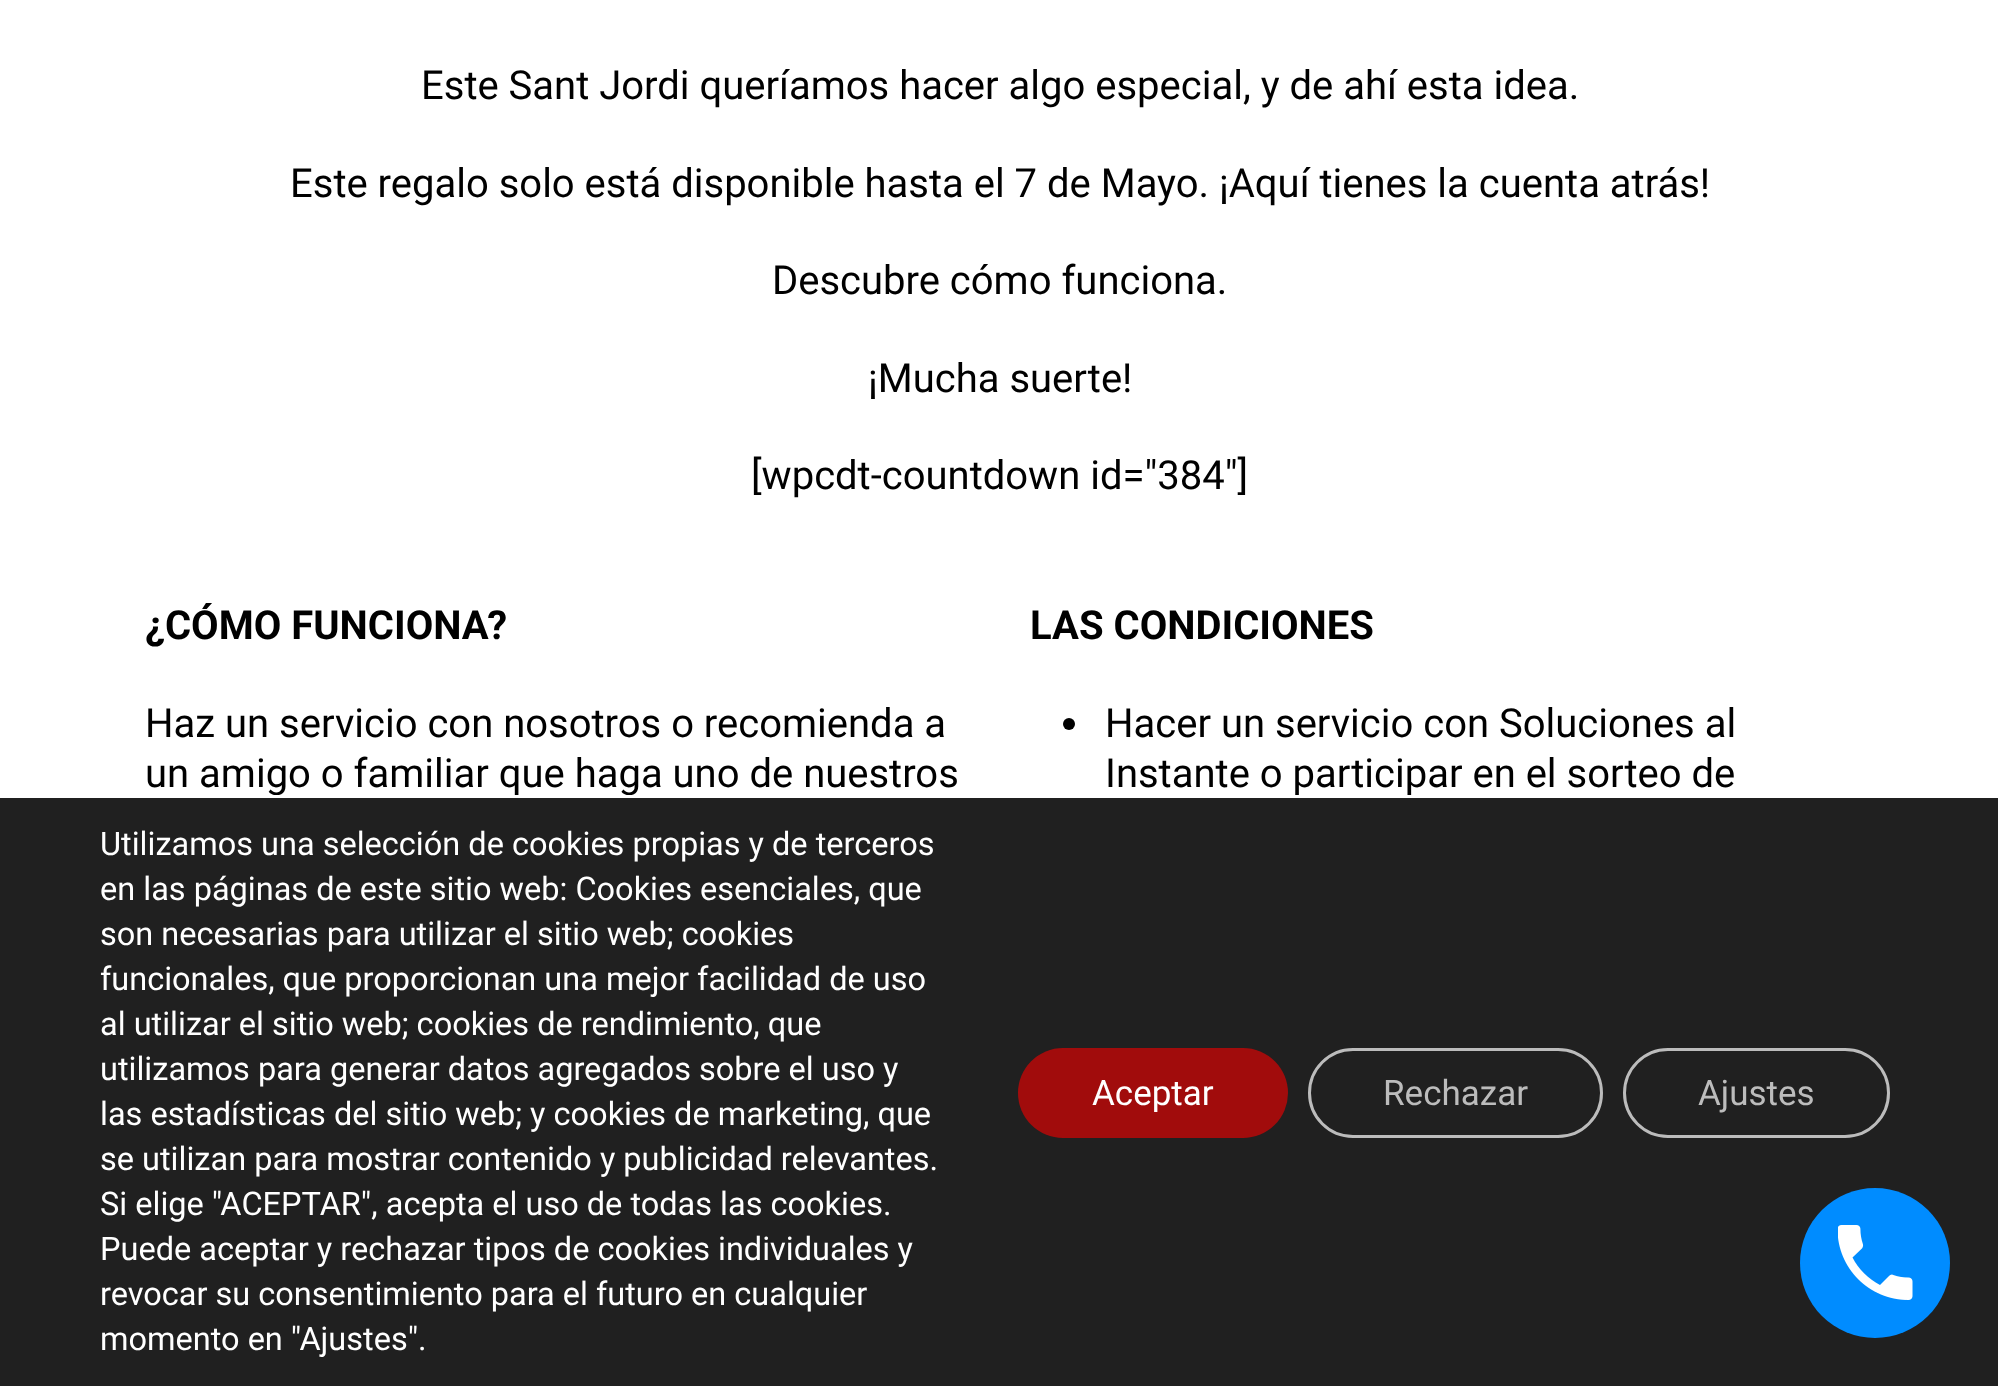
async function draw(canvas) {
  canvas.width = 1998;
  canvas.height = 1386;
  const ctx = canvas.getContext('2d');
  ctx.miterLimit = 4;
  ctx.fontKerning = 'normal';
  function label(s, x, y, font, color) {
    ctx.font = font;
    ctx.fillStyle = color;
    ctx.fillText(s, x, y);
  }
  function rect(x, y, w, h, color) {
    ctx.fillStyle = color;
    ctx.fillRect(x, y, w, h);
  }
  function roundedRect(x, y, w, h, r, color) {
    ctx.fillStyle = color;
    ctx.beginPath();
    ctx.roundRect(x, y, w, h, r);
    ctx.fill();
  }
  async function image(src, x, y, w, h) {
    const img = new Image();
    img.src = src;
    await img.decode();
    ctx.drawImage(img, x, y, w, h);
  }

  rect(0, 0, 1998, 1386, '#fff');
  label('Este Sant Jordi queríamos hacer algo especial, y de ahí esta idea.', 421, 99, '40px Roboto', '#000');
  label('Este regalo solo está disponible hasta el 7 de Mayo. ¡Aquí tienes la cuenta atrás!', 290, 197, '40px Roboto', '#000');
  label('Descubre cómo funciona.', 772, 294, '40px Roboto', '#000');
  label('¡Mucha suerte!', 868, 392, '40px Roboto', '#000');
  label('[wpcdt-countdown id="384"]', 751, 489, '40px Roboto', '#000');
  label('¿CÓMO FUNCIONA?', 145, 639, 'bold 40px Roboto', '#000');
  label('Haz un servicio con nosotros o recomienda a', 145, 737, '40px Roboto', '#000');
  label('un amigo o familiar que haga uno de nuestros', 145, 787, '40px Roboto', '#000');
  label('LAS CONDICIONES', 1030, 639, 'bold 40px Roboto', '#000');
  ctx.beginPath();
  ctx.arc(1069, 724, 6, 0, 2 * Math.PI);
  ctx.fill();
  label('Hacer un servicio con Soluciones al', 1105, 737, '40px Roboto', '#000');
  label('Instante o participar en el sorteo de', 1105, 787, '40px Roboto', '#000');
  rect(0, 798, 1998, 588, '#202020');
  rect(274, 795, 1138, 1, '#fff');
  label('Utilizamos una selección de cookies propias y de terceros', 100, 855, '32.5px Roboto', '#fff');
  label('en las páginas de este sitio web: Cookies esenciales, que', 100, 900, '32.5px Roboto', '#fff');
  label('son necesarias para utilizar el sitio web; cookies', 100, 945, '32.5px Roboto', '#fff');
  label('funcionales, que proporcionan una mejor facilidad de uso', 100, 990, '32.5px Roboto', '#fff');
  label('al utilizar el sitio web; cookies de rendimiento, que', 100, 1035, '32.5px Roboto', '#fff');
  label('utilizamos para generar datos agregados sobre el uso y', 100, 1080, '32.5px Roboto', '#fff');
  label('las estadísticas del sitio web; y cookies de marketing, que', 100, 1125, '32.5px Roboto', '#fff');
  label('se utilizan para mostrar contenido y publicidad relevantes.', 100, 1170, '32.5px Roboto', '#fff');
  label('Si elige "ACEPTAR", acepta el uso de todas las cookies.', 100, 1215, '32.5px Roboto', '#fff');
  label('Puede aceptar y rechazar tipos de cookies individuales y', 100, 1260, '32.5px Roboto', '#fff');
  label('revocar su consentimiento para el futuro en cualquier', 100, 1305, '32.5px Roboto', '#fff');
  label('momento en "Ajustes".', 100, 1350, '32.5px Roboto', '#fff');
  roundedRect(1018, 1048, 270, 90, 45, '#a10c0c');
  label('Aceptar', 1092, 1105, '35px Roboto', '#fff');
  ctx.beginPath();
  ctx.roundRect(1309.5, 1049.5, 292, 87, 43.5);
  ctx.strokeStyle = '#bcbcbc';
  ctx.lineWidth = 3;
  ctx.stroke();
  label('Rechazar', 1383, 1105, '35px Roboto', '#bcbcbc');
  ctx.beginPath();
  ctx.roundRect(1624.5, 1049.5, 264, 87, 43.5);
  ctx.stroke();
  label('Ajustes', 1698, 1105, '35px Roboto', '#bcbcbc');
  ctx.fillStyle = '#008cff';
  ctx.beginPath();
  ctx.arc(1875, 1263, 75, 0, 2 * Math.PI);
  ctx.fill();
  await image('assets/img1.png', 1838, 1225, 75, 75);
}

draw(document.querySelector('canvas'));
